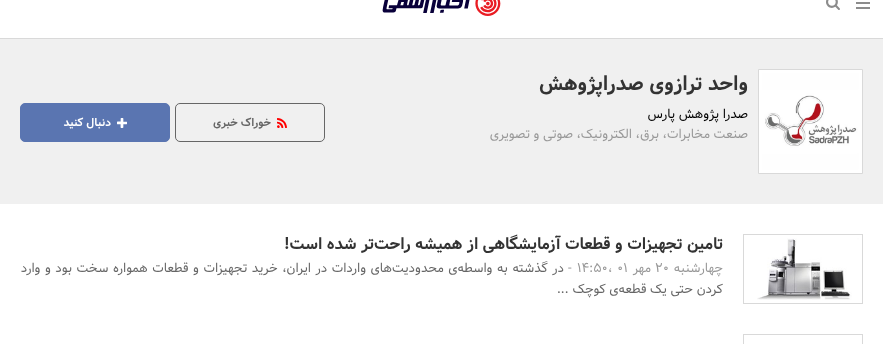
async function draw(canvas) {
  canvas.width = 883;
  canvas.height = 344;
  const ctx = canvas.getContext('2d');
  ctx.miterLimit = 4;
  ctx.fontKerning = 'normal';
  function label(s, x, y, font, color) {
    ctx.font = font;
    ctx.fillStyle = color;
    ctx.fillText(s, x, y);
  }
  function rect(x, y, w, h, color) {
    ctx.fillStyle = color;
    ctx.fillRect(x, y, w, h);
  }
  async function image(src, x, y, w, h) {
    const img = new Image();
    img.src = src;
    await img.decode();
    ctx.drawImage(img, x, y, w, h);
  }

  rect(0, 0, 883, 344, '#fff');
  rect(0, 38, 883, 1, '#d9d9d9');
  rect(856, 2, 14, 2, '#8c8c8c');
  rect(856, 7, 14, 2, '#8c8c8c');
  await image('assets/img1.png', 826, 0, 14, 10);
  await image('assets/img2.png', 382, 0, 119, 16);
  rect(0, 39, 883, 165, '#f0f0f0');
  ctx.fillStyle = '#fff';
  ctx.beginPath();
  ctx.rect(758.5, 69.5, 104, 104);
  ctx.fill();
  ctx.strokeStyle = '#d9d9d9';
  ctx.stroke();
  await image('assets/img3.png', 762, 73, 97, 97);
  ctx.direction = 'rtl';
  label('واحد ترازوی صدراپژوهش', 748, 90, 'bold 20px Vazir', '#333');
  label('صدرا پژوهش پارس', 748, 118, '13px Vazir', '#000');
  label('صنعت مخابرات، برق، الکترونیک، صوتی و تصویری', 748, 138, '13px Vazir', '#999');
  ctx.beginPath();
  ctx.roundRect(175.5, 103.5, 149, 38, 4.5);
  ctx.strokeStyle = '#666';
  ctx.stroke();
  await image('assets/img4.png', 277, 118, 10, 10);
  label('خوراک خبری', 271, 126, 'bold 11px Vazir', '#666');
  ctx.fillStyle = '#5a75b1';
  ctx.beginPath();
  ctx.roundRect(20.5, 103.5, 149, 38, 4.5);
  ctx.fill();
  ctx.strokeStyle = '#5a75b1';
  ctx.stroke();
  await image('assets/img5.png', 117, 118, 10, 10);
  label('دنبال کنید', 111, 126, 'bold 11px Vazir', '#fff');
  rect(743, 234, 120, 70, '#d9d9d9');
  ctx.strokeStyle = '#fff';
  ctx.lineWidth = 3;
  ctx.strokeRect(745.5, 236.5, 115, 65);
  await image('assets/img6.png', 747, 238, 112, 62);
  label('تامین تجهیزات و قطعات آزمایشگاهی از همیشه راحت‌تر شده است!', 723, 249, 'bold 16px Vazir', '#333');
  label('چهارشنبه', 723, 272, '13px Vazir', '#999');
  ctx.direction = 'ltr';
  label('20', 655, 272, '13px Vazir', '#999');
  ctx.direction = 'rtl';
  label('مهر', 651, 272, '13px Vazir', '#999');
  ctx.direction = 'ltr';
  label('01', 617, 272, '13px Vazir', '#999');
  label('14:50،', 577, 272, '13px Vazir', '#999');
  label('-', 568, 272, '13px Vazir', '#999');
  ctx.wordSpacing = '0.9px';
  ctx.direction = 'rtl';
  label('در گذشته به واسطه‌ی محدودیت‌های واردات در ایران، خرید تجهیزات و قطعات همواره سخت بود و وارد', 564, 272, '13px Vazir', '#666');
  ctx.wordSpacing = '0px';
  label('کردن حتی یک قطعه‌ی کوچک', 723, 293, '13px Vazir', '#666');
  ctx.direction = 'ltr';
  label('...', 557, 293, '13px Vazir', '#666');
  rect(743, 334, 120, 10, '#d9d9d9');
  ctx.strokeRect(745.5, 336.5, 115, 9);
  rect(747, 338, 112, 6, '#fff');
}

draw(document.querySelector('canvas'));
